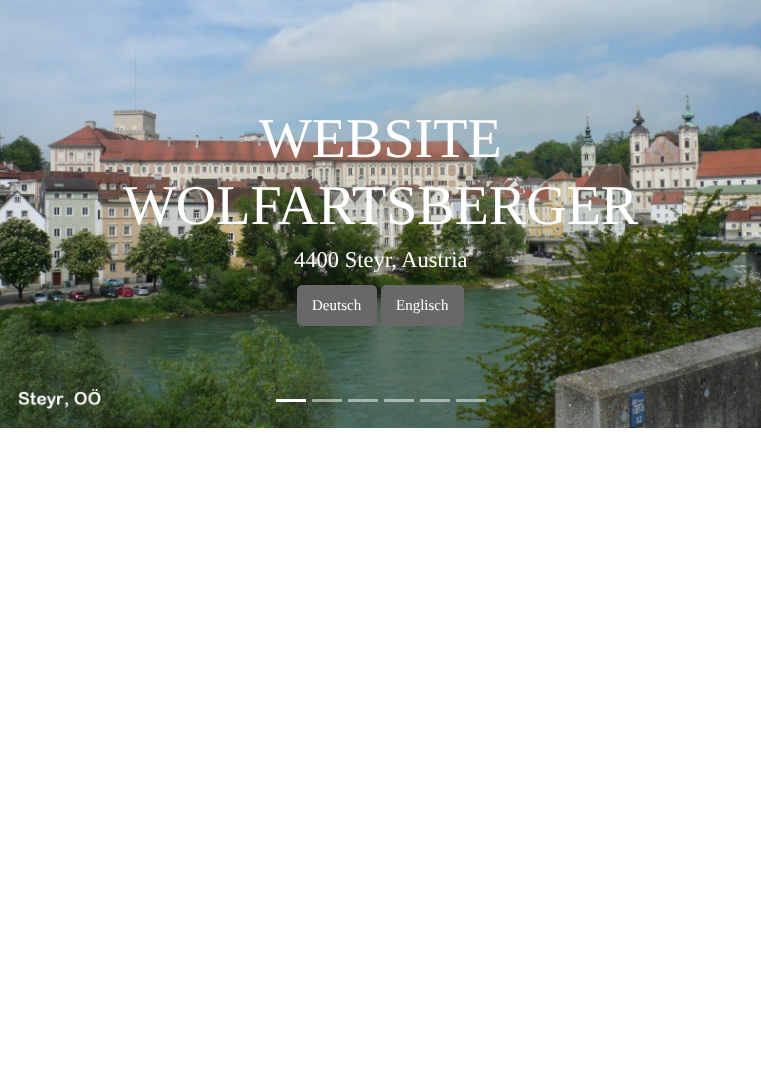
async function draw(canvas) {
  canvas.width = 761;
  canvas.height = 1086;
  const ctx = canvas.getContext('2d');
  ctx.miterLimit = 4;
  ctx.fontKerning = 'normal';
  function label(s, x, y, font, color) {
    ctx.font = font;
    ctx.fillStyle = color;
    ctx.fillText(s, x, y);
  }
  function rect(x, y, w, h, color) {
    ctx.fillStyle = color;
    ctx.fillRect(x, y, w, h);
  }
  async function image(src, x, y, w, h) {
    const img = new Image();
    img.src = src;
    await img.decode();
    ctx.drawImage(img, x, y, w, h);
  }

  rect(0, 0, 761, 1086, '#fff');
  await image('assets/img1.png', 0, 0, 761, 428);
  label('WEBSITE', 259, 157, '56px Liberation Serif', '#fff');
  label('WOLFARTSBERGER', 123, 224, '56px Liberation Serif', '#fff');
  label('4400 Steyr, Austria', 294, 267, '22.5px Liberation Serif', '#fff');
  ctx.fillStyle = '#686868';
  ctx.beginPath();
  ctx.roundRect(297.5, 285.5, 79, 40, 4.5);
  ctx.fill();
  ctx.strokeStyle = '#686868';
  ctx.stroke();
  label('Deutsch', 312, 310, '15px Liberation Serif', '#fff');
  ctx.fillStyle = '#686868';
  ctx.beginPath();
  ctx.roundRect(381.5, 285.5, 82, 40, 4.5);
  ctx.fill();
  ctx.stroke();
  label('Englisch', 396, 310, '15px Liberation Serif', '#fff');
  rect(276, 399, 30, 3, '#fff');
  rect(312, 399, 30, 3, '#ffffff80');
  rect(348, 399, 30, 3, '#ffffff80');
  rect(384, 399, 30, 3, '#ffffff80');
  rect(420, 399, 30, 3, '#ffffff80');
  rect(456, 399, 30, 3, '#ffffff80');
}

draw(document.querySelector('canvas'));
